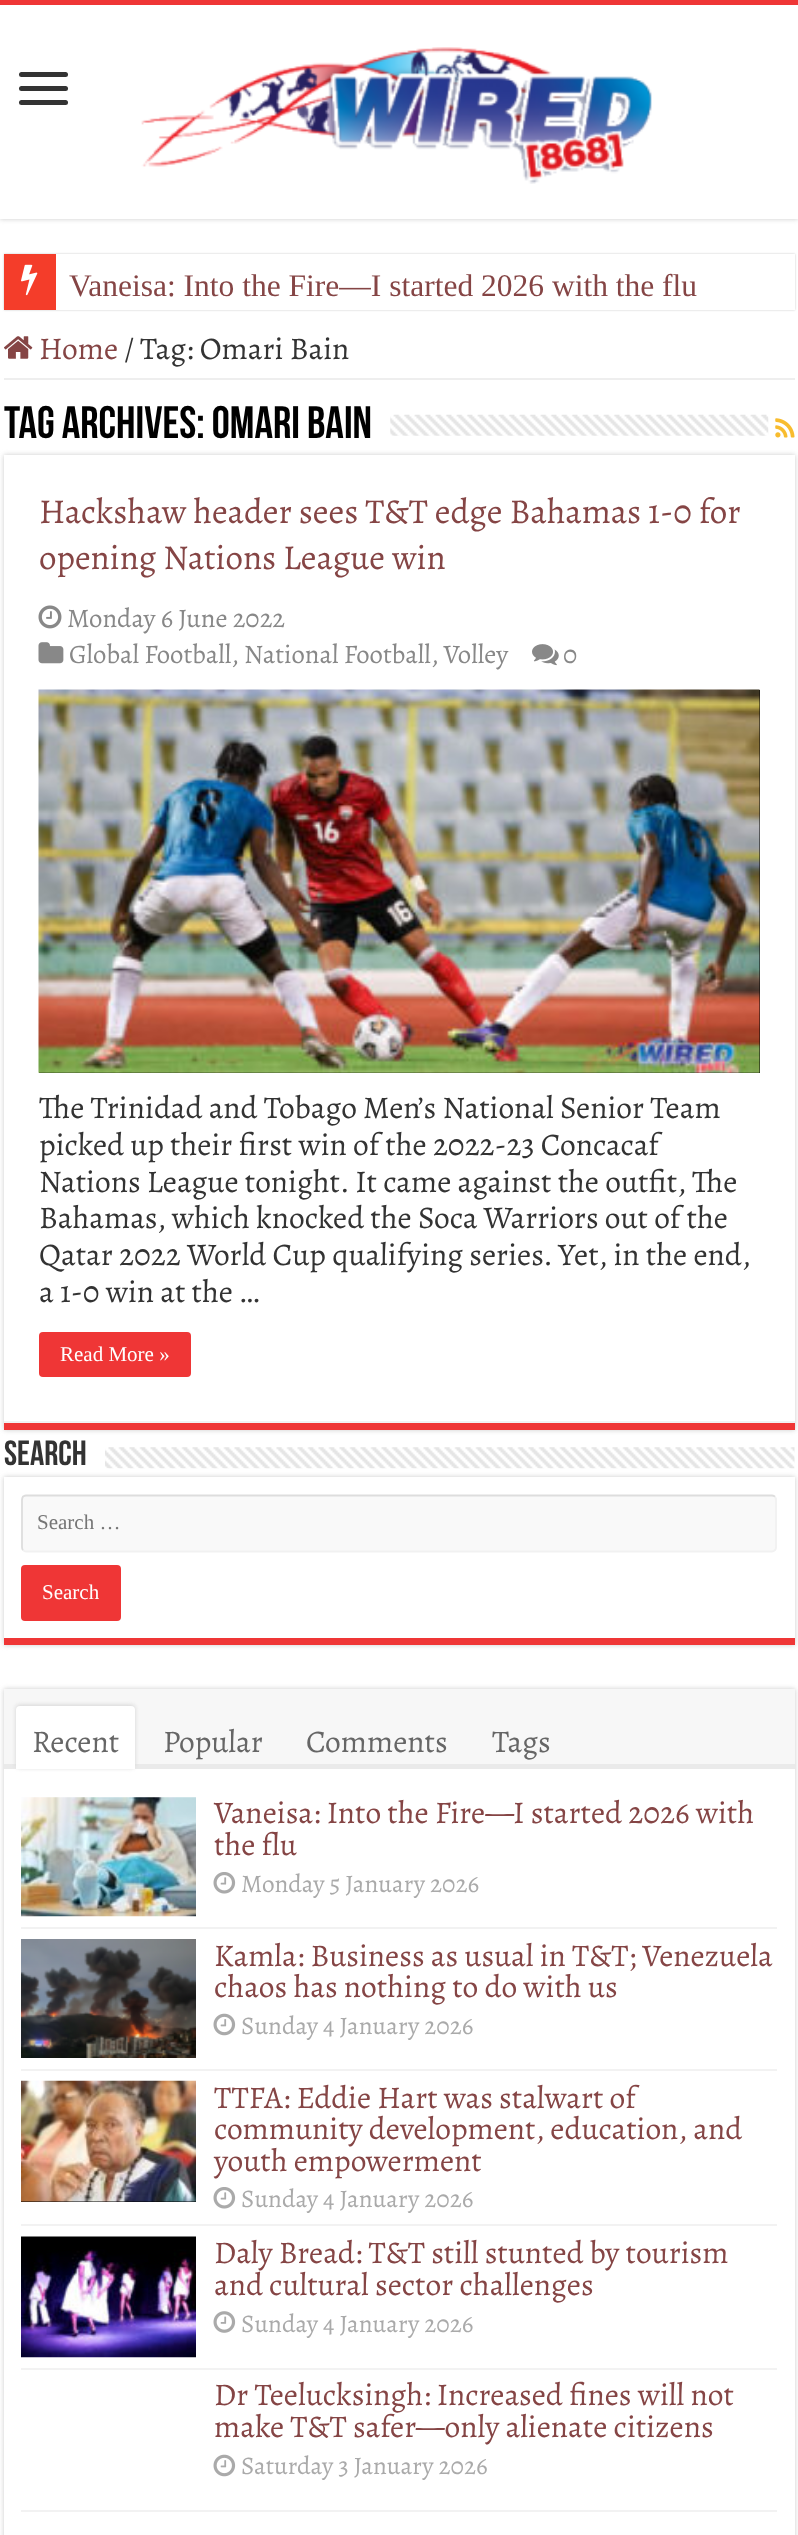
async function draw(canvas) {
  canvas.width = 798;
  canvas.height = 2535;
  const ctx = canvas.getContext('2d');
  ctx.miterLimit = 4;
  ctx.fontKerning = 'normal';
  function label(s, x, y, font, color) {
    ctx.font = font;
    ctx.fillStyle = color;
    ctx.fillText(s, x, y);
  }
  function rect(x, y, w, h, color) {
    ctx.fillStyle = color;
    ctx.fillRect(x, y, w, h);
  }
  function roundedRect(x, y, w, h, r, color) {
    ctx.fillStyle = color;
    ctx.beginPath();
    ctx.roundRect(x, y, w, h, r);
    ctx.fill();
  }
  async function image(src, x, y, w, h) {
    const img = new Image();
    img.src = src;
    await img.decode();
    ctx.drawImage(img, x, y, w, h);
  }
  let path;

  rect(0, 0, 798, 2535, '#fff');
  ctx.fillStyle = '#cacaca';
  ctx.filter = 'blur(2.5px)';
  ctx.beginPath();
  ctx.rect(0, 0, 798, 219);
  ctx.fill();
  ctx.filter = 'none';
  rect(0, 5, 798, 214, '#fff');
  rect(0, 0, 798, 5, '#ef3636');
  roundedRect(19, 72, 49, 5, 2.5, '#333');
  roundedRect(19, 86, 49, 5, 2.5, '#333');
  roundedRect(19, 100, 49, 5, 2.5, '#333');
  await image('assets/img1.png', 141, 47, 511, 137);
  ctx.fillStyle = '#cacaca';
  ctx.filter = 'blur(1px)';
  ctx.beginPath();
  ctx.rect(4, 254, 791, 56);
  ctx.fill();
  ctx.filter = 'none';
  rect(56, 254, 739, 56, '#fff');
  rect(4, 254, 52, 56, '#f43d2a');
  await image('assets/img2.png', 21, 264, 17, 32);
  label('Vaneisa: Into the Fire—I started 2026 with the flu', 69, 296, '31.5px Liberation Serif', '#854545');
  rect(4, 378, 791, 2, '#eee');
  await image('assets/img3.png', 4, 336, 29, 23);
  label('Home', 39, 359, '31.5px Alegreya', '#854545');
  label('/', 124, 359, '31.5px Alegreya', '#333');
  label('Tag: Omari Bain', 140, 359, '31.5px Alegreya', '#333');
  label('Tag Archives: Omari Bain', 4, 438, 'bold 45.5px Bebas Neue', '#000');
  await image('assets/img4.png', 390, 414, 379, 22);
  await image('assets/img5.png', 775, 418, 20, 20);
  ctx.fillStyle = '#cacaca';
  ctx.filter = 'blur(2.5px)';
  ctx.beginPath();
  ctx.rect(4, 455, 791, 975);
  ctx.fill();
  ctx.filter = 'none';
  rect(4, 455, 791, 966, '#fff');
  rect(4, 1423, 791, 7, '#ef3636');
  rect(4, 1421, 791, 2, '#f2f2f2');
  label('Hackshaw header sees T&T edge Bahamas 1-0 for', 39, 523, '35px Alegreya', '#854545');
  label('opening Nations League win', 39, 569, '35px Alegreya', '#854545');
  await image('assets/img6.png', 38, 605, 24, 24);
  label('Monday 6 June 2022', 67, 627, '26.75px Alegreya', '#888');
  await image('assets/img7.png', 38, 642, 26, 22);
  label('Global Football, National Football, Volley', 69, 663, '26.75px Alegreya', '#888');
  await image('assets/img8.png', 532, 644, 27, 22);
  label('0', 563, 663, '26.75px Alegreya', '#888');
  rect(39, 690, 721, 383, '#000');
  await image('assets/img9.png', 38, 689, 722, 384);
  label('The Trinidad and Tobago Men’s National Senior Team', 39, 1118, '31.5px Alegreya', '#333');
  label('picked up their first win of the 2022-23 Concacaf', 39, 1155, '31.5px Alegreya', '#333');
  label('Nations League tonight. It came against the outfit, The', 39, 1192, '31.5px Alegreya', '#333');
  label('Bahamas, which knocked the Soca Warriors out of the', 39, 1228, '31.5px Alegreya', '#333');
  label('Qatar 2022 World Cup qualifying series. Yet, in the end,', 39, 1265, '31.5px Alegreya', '#333');
  label('a 1-0 win at the …', 39, 1302, '31.5px Alegreya', '#333');
  roundedRect(39, 1332, 152, 45, 4, '#ef3636');
  label('Read More »', 60, 1361, '21px Liberation Serif', '#fff');
  label('Search', 4, 1465, 'bold 35px Bebas Neue', '#333');
  ctx.fillStyle = '#cacaca';
  ctx.filter = 'blur(2.5px)';
  ctx.beginPath();
  ctx.rect(4, 1477, 791, 168);
  ctx.fill();
  ctx.filter = 'none';
  await image('assets/img10.png', 105, 1447, 690, 22);
  rect(4, 1477, 791, 161, '#fff');
  rect(4, 1638, 791, 7, '#ef3636');
  roundedRect(21, 1495, 756, 57, 5, '#f9f9f9');
  path = new Path2D('M775 1496.5C775.5 1497.5 776 1498.5 776 1500V1547C776 1548 775.5 1549.5 775 1550C774 1551 773 1551.5 772 1551.5H26C25 1551.5 24 1551 23 1550');
  ctx.strokeStyle = '#f1f1f1';
  ctx.lineWidth = 1.8;
  ctx.stroke(path);
  path = new Path2D('M23 1550C22.5 1549.5 22 1548 22 1547V1500C22 1498.5 22.5 1497.5 23 1496.5C24 1496 25 1495.5 26 1495.5H772C773 1495.5 774 1496 775 1496.5');
  ctx.strokeStyle = '#ddd';
  ctx.stroke(path);
  label('Search …', 37, 1529, '21px Liberation Serif', '#757575');
  roundedRect(21, 1565, 100, 56, 4, '#ef3636');
  label('Search', 42, 1599, '21px Liberation Serif', '#fff');
  ctx.fillStyle = '#cacaca';
  ctx.filter = 'blur(2.5px)';
  ctx.beginPath();
  ctx.rect(4, 1689, 791, 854);
  ctx.fill();
  ctx.filter = 'none';
  rect(4, 1769, 791, 766, '#fff');
  rect(4, 1689, 791, 75, '#f7f7f7');
  rect(4, 1764, 791, 5, '#eaeaea');
  ctx.fillStyle = '#d4d4d4';
  ctx.filter = 'blur(2px)';
  ctx.beginPath();
  ctx.roundRect(16, 1705, 119, 63, 4);
  ctx.fill();
  ctx.filter = 'none';
  ctx.fillStyle = '#fff';
  ctx.beginPath();
  ctx.roundRect(16, 1706, 119, 63, [4, 4, 0, 0]);
  ctx.fill();
  label('Recent', 32, 1752, '31.5px Alegreya', '#666');
  label('Popular', 163, 1752, '31.5px Alegreya', '#666');
  label('Comments', 306, 1752, '31.5px Alegreya', '#666');
  label('Tags', 492, 1752, '31.5px Alegreya', '#666');
  rect(21, 1927, 756, 2, '#f2f2f2');
  await image('assets/img11.png', 21, 1797, 175, 120);
  label('Vaneisa: Into the Fire—I started 2026 with', 214, 1823, '31.5px Alegreya', '#854545');
  label('the flu', 214, 1855, '31.5px Alegreya', '#854545');
  await image('assets/img12.png', 213, 1872, 23, 22);
  label('Monday 5 January 2026', 241, 1892, '25.25px Alegreya', '#aaa');
  rect(21, 2069, 756, 2, '#f2f2f2');
  await image('assets/img13.png', 21, 1939, 175, 119);
  label('Kamla: Business as usual in T&T; Venezuela', 214, 1966, '31.5px Alegreya', '#854545');
  label('chaos has nothing to do with us', 214, 1997, '31.5px Alegreya', '#854545');
  await image('assets/img14.png', 213, 2013, 23, 23);
  label('Sunday 4 January 2026', 241, 2034, '25.25px Alegreya', '#aaa');
  rect(21, 2224, 756, 2, '#f2f2f2');
  rect(21, 2201, 175, 1, '#000');
  await image('assets/img15.png', 21, 2080, 175, 122);
  label('TTFA: Eddie Hart was stalwart of', 214, 2108, '31.5px Alegreya', '#854545');
  label('community development, education, and', 214, 2139, '31.5px Alegreya', '#854545');
  label('youth empowerment', 214, 2171, '31.5px Alegreya', '#854545');
  await image('assets/img12.png', 213, 2187, 23, 22);
  label('Sunday 4 January 2026', 241, 2207, '25.25px Alegreya', '#aaa');
  rect(21, 2368, 756, 2, '#f2f2f2');
  await image('assets/img16.png', 21, 2236, 175, 122);
  label('Daly Bread: T&T still stunted by tourism', 214, 2263, '31.5px Alegreya', '#854545');
  label('and cultural sector challenges', 214, 2295, '31.5px Alegreya', '#854545');
  await image('assets/img17.png', 213, 2311, 23, 22);
  label('Sunday 4 January 2026', 241, 2332, '25.25px Alegreya', '#aaa');
  rect(21, 2510, 756, 2, '#f2f2f2');
  label('Dr Teelucksingh: Increased fines will not', 214, 2405, '31.5px Alegreya', '#854545');
  label('make T&T safer—only alienate citizens', 214, 2437, '31.5px Alegreya', '#854545');
  await image('assets/img14.png', 213, 2454, 23, 23);
  label('Saturday 3 January 2026', 241, 2474, '25.25px Alegreya', '#aaa');
}

draw(document.querySelector('canvas'));
